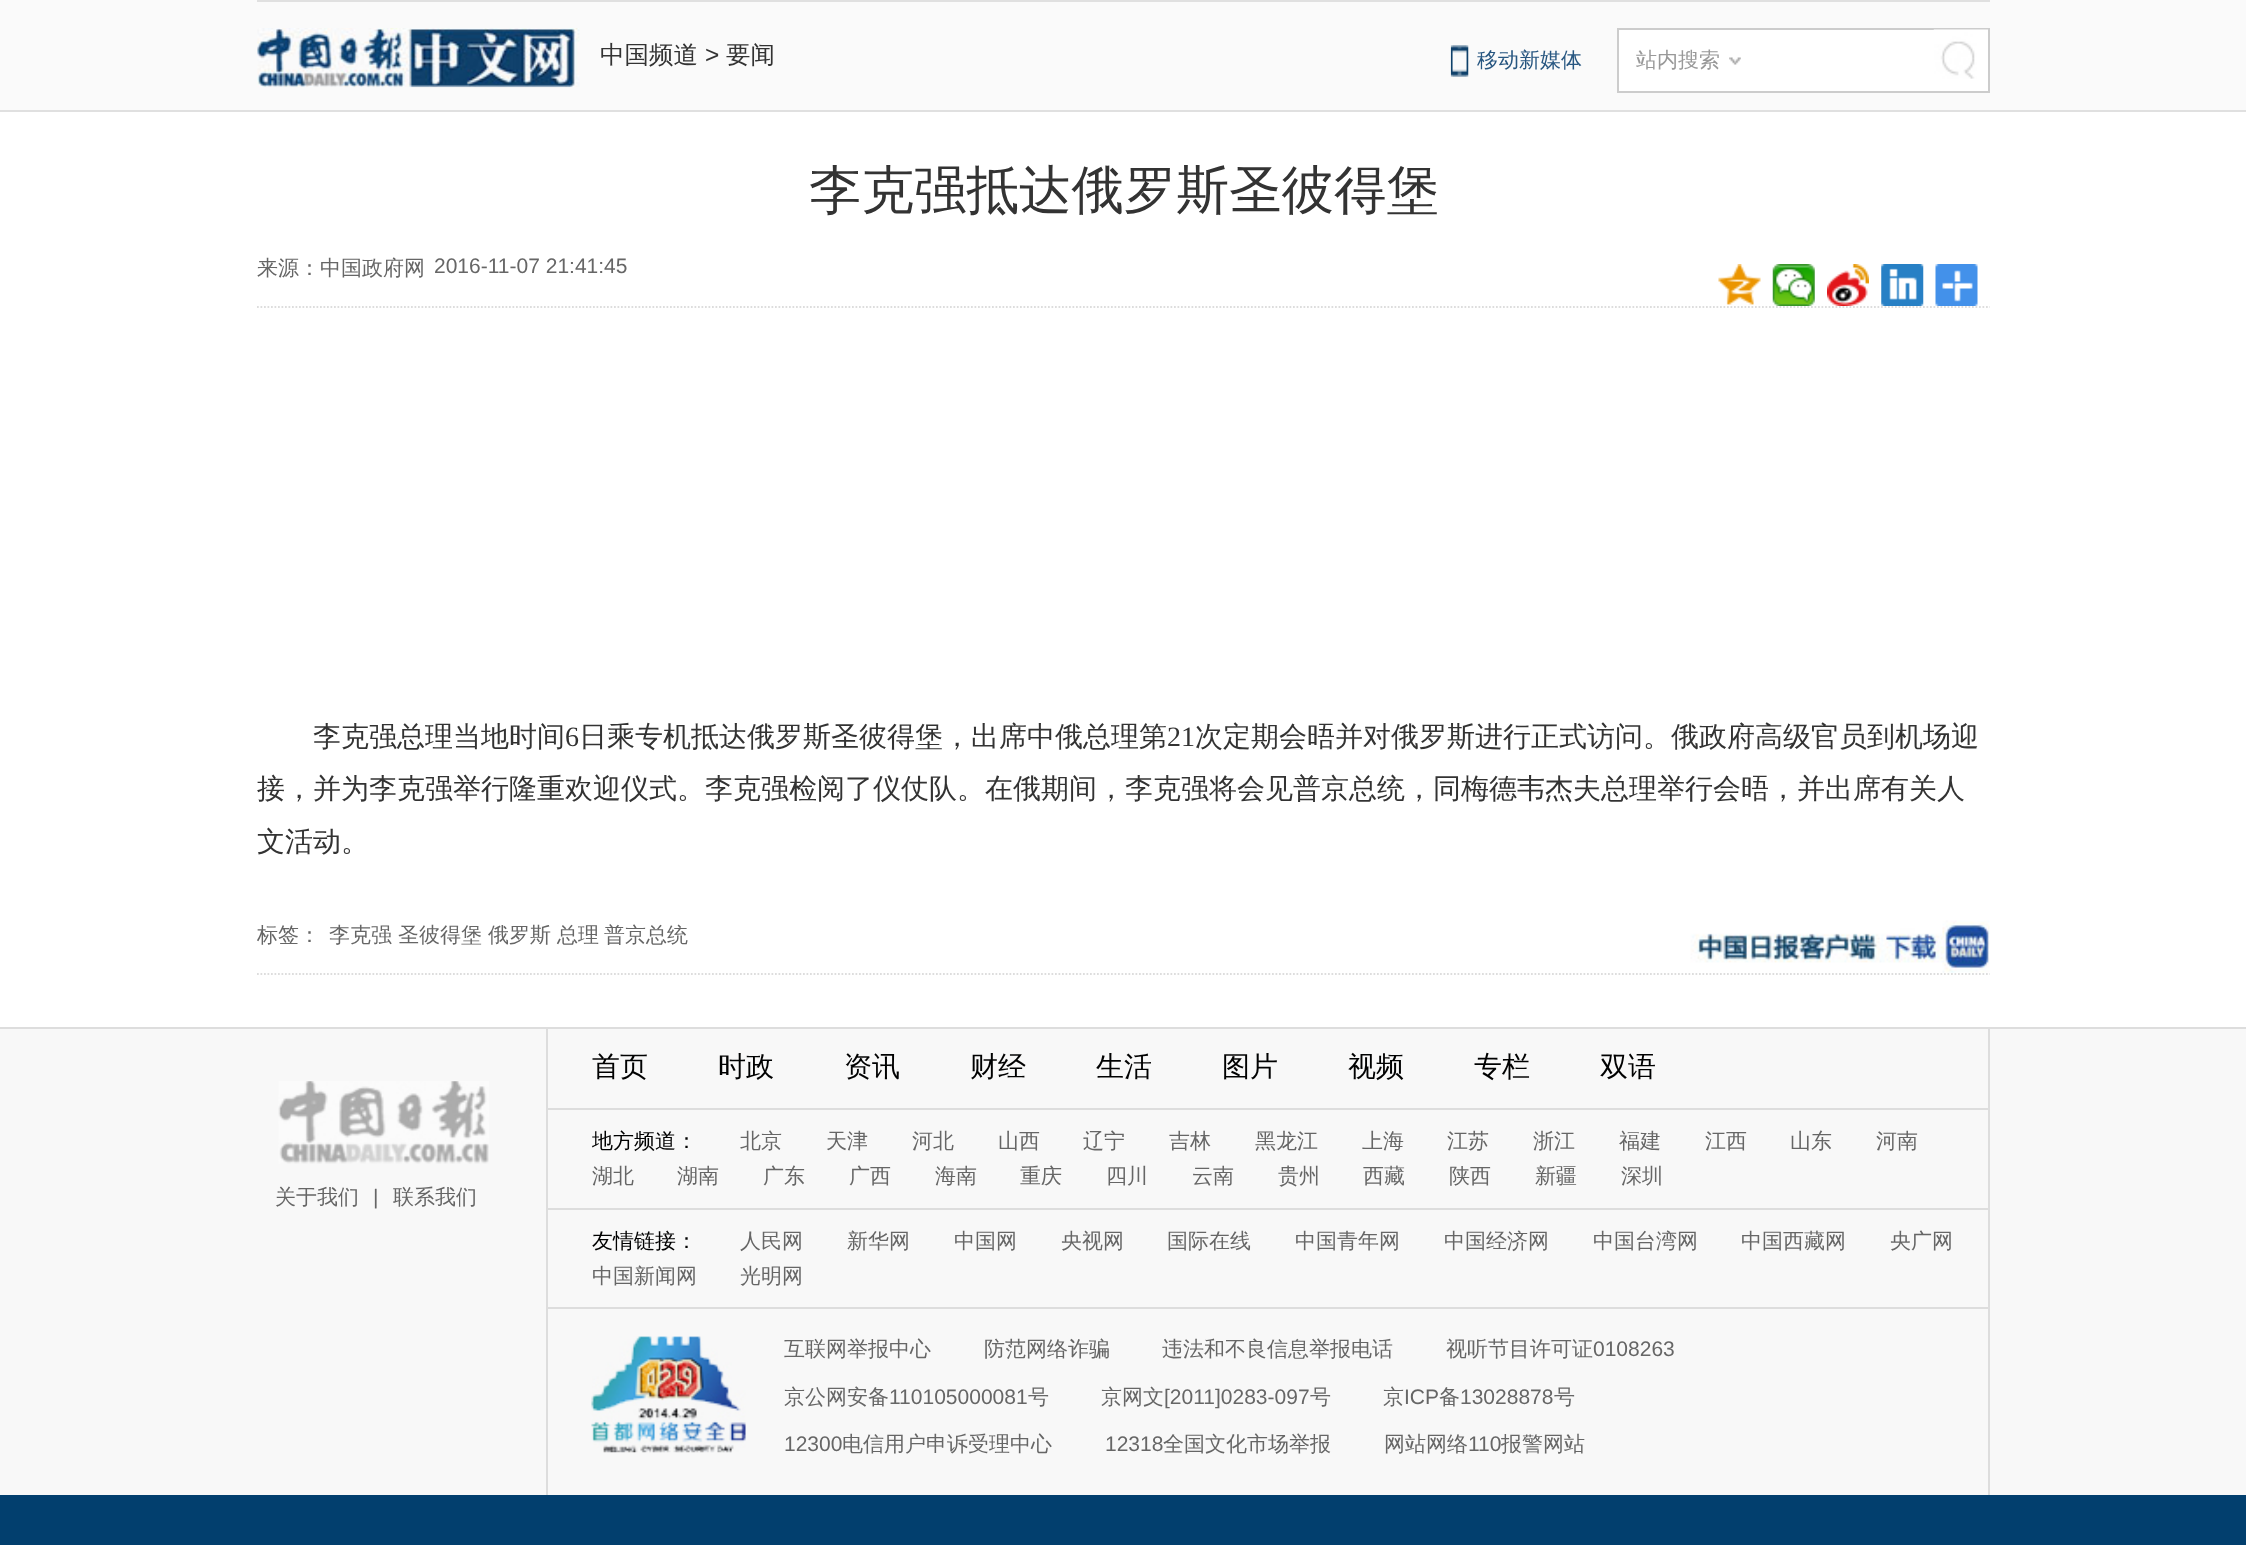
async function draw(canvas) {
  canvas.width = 2246;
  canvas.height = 1545;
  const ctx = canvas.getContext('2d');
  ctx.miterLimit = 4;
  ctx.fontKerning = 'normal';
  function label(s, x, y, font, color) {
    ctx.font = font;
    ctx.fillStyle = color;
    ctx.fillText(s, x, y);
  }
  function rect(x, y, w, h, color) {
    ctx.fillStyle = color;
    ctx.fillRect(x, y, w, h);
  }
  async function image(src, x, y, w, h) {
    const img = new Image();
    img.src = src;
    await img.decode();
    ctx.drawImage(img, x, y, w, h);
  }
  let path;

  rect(0, 0, 2246, 1545, '#fff');
  rect(0, 0, 2246, 110, '#fafafa');
  rect(0, 110, 2246, 2, '#e0e0e0');
  rect(257, 0, 1733, 2, '#e0e0e0');
  await image('assets/img1.png', 257, 28, 323, 60);
  label('中国频道', 600, 63, '500 24.5px WenQuanYi Zen Hei', '#333');
  label('>', 705, 63, '24.5px Liberation Sans', '#333');
  label('要闻', 726, 63, '500 24.5px WenQuanYi Zen Hei', '#333');
  await image('assets/img2.png', 1450, 45, 19, 32);
  label('移动新媒体', 1477, 67, '500 21px WenQuanYi Zen Hei', '#275680');
  ctx.fillStyle = '#fff';
  ctx.beginPath();
  ctx.rect(1618, 29, 371, 63);
  ctx.fill();
  ctx.strokeStyle = '#ccc';
  ctx.lineWidth = 2;
  ctx.stroke();
  await image('assets/img3.png', 1729, 57, 12, 8);
  label('站内搜索', 1636, 67, '500 21px WenQuanYi Zen Hei', '#999');
  await image('assets/img4.png', 1933, 29, 55, 50);
  label('李克强抵达俄罗斯圣彼得堡', 809, 208, '500 52.5px WenQuanYi Zen Hei', '#333');
  path = new Path2D('M257 307H1990');
  ctx.strokeStyle = '#ddd';
  ctx.lineWidth = 1.8;
  ctx.setLineDash([1.75, 1.75]);
  ctx.stroke(path);
  label('来源：中国政府网', 257, 275, '500 21px WenQuanYi Zen Hei', '#666');
  label('2016-11-07 21:41:45', 434, 273, '21px Liberation Sans', '#666');
  await image('assets/img5.png', 1718, 264, 43, 41);
  await image('assets/img6.png', 1772, 264, 43, 42);
  await image('assets/img7.png', 1827, 264, 42, 42);
  await image('assets/img8.png', 1881, 264, 43, 42);
  await image('assets/img9.png', 1935, 264, 43, 42);
  label('李克强总理当地时间', 313, 746, '500 28px WenQuanYi Zen Hei', '#333');
  label('6', 565, 746, '28px Liberation Serif', '#333');
  label('日乘专机抵达俄罗斯圣彼得堡，出席中俄总理第', 579, 746, '500 28px WenQuanYi Zen Hei', '#333');
  label('21', 1167, 746, '28px Liberation Serif', '#333');
  label('次定期会晤并对俄罗斯进行正式访问。俄政府高级官员到机场迎', 1195, 746, '500 28px WenQuanYi Zen Hei', '#333');
  label('接，并为李克强举行隆重欢迎仪式。李克强检阅了仪仗队。在俄期间，李克强将会见普京总统，同梅德韦杰夫总理举行会晤，并出席有关人', 257, 798, '500 28px WenQuanYi Zen Hei', '#333');
  label('文活动。', 257, 851, '500 28px WenQuanYi Zen Hei', '#333');
  path = new Path2D('M257 974H1990');
  ctx.stroke(path);
  label('标签：', 257, 942, '500 21px WenQuanYi Zen Hei', '#666');
  label('李克强', 329, 942, '500 21px WenQuanYi Zen Hei', '#666');
  label('圣彼得堡', 398, 942, '500 21px WenQuanYi Zen Hei', '#666');
  label('俄罗斯', 488, 942, '500 21px WenQuanYi Zen Hei', '#666');
  label('总理', 557, 942, '500 21px WenQuanYi Zen Hei', '#666');
  label('普京总统', 604, 942, '500 21px WenQuanYi Zen Hei', '#666');
  await image('assets/img10.png', 1690, 920, 300, 53);
  rect(0, 1029, 2246, 466, '#f8f8f8');
  rect(0, 1027, 2246, 2, '#ddd');
  rect(0, 1495, 2246, 50, '#023f6e');
  await image('assets/img11.png', 278, 1081, 211, 83);
  label('关于我们', 275, 1204, '500 21px WenQuanYi Zen Hei', '#666');
  label('|', 373, 1204, '21px Liberation Sans', '#666');
  label('联系我们', 393, 1204, '500 21px WenQuanYi Zen Hei', '#666');
  rect(1988, 1029, 2, 466, '#ddd');
  rect(546, 1029, 2, 466, '#ddd');
  rect(548, 1108, 1440, 2, '#ddd');
  label('首页', 592, 1076, '500 28px WenQuanYi Zen Hei', '#000101');
  label('时政', 718, 1076, '500 28px WenQuanYi Zen Hei', '#000101');
  label('资讯', 844, 1076, '500 28px WenQuanYi Zen Hei', '#000101');
  label('财经', 970, 1076, '500 28px WenQuanYi Zen Hei', '#000101');
  label('生活', 1096, 1076, '500 28px WenQuanYi Zen Hei', '#000101');
  label('图片', 1222, 1076, '500 28px WenQuanYi Zen Hei', '#000101');
  label('视频', 1348, 1076, '500 28px WenQuanYi Zen Hei', '#000101');
  label('专栏', 1474, 1076, '500 28px WenQuanYi Zen Hei', '#000101');
  label('双语', 1600, 1076, '500 28px WenQuanYi Zen Hei', '#000101');
  rect(548, 1208, 1440, 2, '#ddd');
  label('地方频道：', 592, 1148, '500 21px WenQuanYi Zen Hei', '#000101');
  label('北京', 740, 1148, '500 21px WenQuanYi Zen Hei', '#666');
  label('天津', 826, 1148, '500 21px WenQuanYi Zen Hei', '#666');
  label('河北', 912, 1148, '500 21px WenQuanYi Zen Hei', '#666');
  label('山西', 998, 1148, '500 21px WenQuanYi Zen Hei', '#666');
  label('辽宁', 1083, 1148, '500 21px WenQuanYi Zen Hei', '#666');
  label('吉林', 1169, 1148, '500 21px WenQuanYi Zen Hei', '#666');
  label('黑龙江', 1255, 1148, '500 21px WenQuanYi Zen Hei', '#666');
  label('上海', 1362, 1148, '500 21px WenQuanYi Zen Hei', '#666');
  label('江苏', 1447, 1148, '500 21px WenQuanYi Zen Hei', '#666');
  label('浙江', 1533, 1148, '500 21px WenQuanYi Zen Hei', '#666');
  label('福建', 1619, 1148, '500 21px WenQuanYi Zen Hei', '#666');
  label('江西', 1705, 1148, '500 21px WenQuanYi Zen Hei', '#666');
  label('山东', 1790, 1148, '500 21px WenQuanYi Zen Hei', '#666');
  label('河南', 1876, 1148, '500 21px WenQuanYi Zen Hei', '#666');
  label('湖北', 592, 1183, '500 21px WenQuanYi Zen Hei', '#666');
  label('湖南', 677, 1183, '500 21px WenQuanYi Zen Hei', '#666');
  label('广东', 763, 1183, '500 21px WenQuanYi Zen Hei', '#666');
  label('广西', 849, 1183, '500 21px WenQuanYi Zen Hei', '#666');
  label('海南', 935, 1183, '500 21px WenQuanYi Zen Hei', '#666');
  label('重庆', 1020, 1183, '500 21px WenQuanYi Zen Hei', '#666');
  label('四川', 1106, 1183, '500 21px WenQuanYi Zen Hei', '#666');
  label('云南', 1192, 1183, '500 21px WenQuanYi Zen Hei', '#666');
  label('贵州', 1278, 1183, '500 21px WenQuanYi Zen Hei', '#666');
  label('西藏', 1363, 1183, '500 21px WenQuanYi Zen Hei', '#666');
  label('陕西', 1449, 1183, '500 21px WenQuanYi Zen Hei', '#666');
  label('新疆', 1535, 1183, '500 21px WenQuanYi Zen Hei', '#666');
  label('深圳', 1621, 1183, '500 21px WenQuanYi Zen Hei', '#666');
  rect(548, 1307, 1440, 2, '#ddd');
  label('友情链接：', 592, 1248, '500 21px WenQuanYi Zen Hei', '#000101');
  label('人民网', 740, 1248, '500 21px WenQuanYi Zen Hei', '#666');
  label('新华网', 847, 1248, '500 21px WenQuanYi Zen Hei', '#666');
  label('中国网', 954, 1248, '500 21px WenQuanYi Zen Hei', '#666');
  label('央视网', 1061, 1248, '500 21px WenQuanYi Zen Hei', '#666');
  label('国际在线', 1167, 1248, '500 21px WenQuanYi Zen Hei', '#666');
  label('中国青年网', 1295, 1248, '500 21px WenQuanYi Zen Hei', '#666');
  label('中国经济网', 1444, 1248, '500 21px WenQuanYi Zen Hei', '#666');
  label('中国台湾网', 1593, 1248, '500 21px WenQuanYi Zen Hei', '#666');
  label('中国西藏网', 1741, 1248, '500 21px WenQuanYi Zen Hei', '#666');
  label('央广网', 1890, 1248, '500 21px WenQuanYi Zen Hei', '#666');
  label('中国新闻网', 592, 1283, '500 21px WenQuanYi Zen Hei', '#666');
  label('光明网', 740, 1283, '500 21px WenQuanYi Zen Hei', '#666');
  await image('assets/img12.png', 591, 1336, 155, 117);
  label('互联网举报中心', 784, 1356, '500 21px WenQuanYi Zen Hei', '#666');
  label('防范网络诈骗', 984, 1356, '500 21px WenQuanYi Zen Hei', '#666');
  label('违法和不良信息举报电话', 1162, 1356, '500 21px WenQuanYi Zen Hei', '#666');
  label('视听节目许可证', 1446, 1356, '500 21px WenQuanYi Zen Hei', '#666');
  label('0108263', 1593, 1356, '21px Liberation Sans', '#666');
  label('京公网安备', 784, 1404, '500 21px WenQuanYi Zen Hei', '#666');
  label('110105000081', 889, 1404, '21px Liberation Sans', '#666');
  label('号', 1028, 1404, '500 21px WenQuanYi Zen Hei', '#666');
  label('京网文', 1101, 1404, '500 21px WenQuanYi Zen Hei', '#666');
  label('[2011]0283-097', 1164, 1404, '21px Liberation Sans', '#666');
  label('号', 1310, 1404, '500 21px WenQuanYi Zen Hei', '#666');
  label('京', 1383, 1404, '500 21px WenQuanYi Zen Hei', '#666');
  label('ICP', 1404, 1404, '21px Liberation Sans', '#666');
  label('备', 1439, 1404, '500 21px WenQuanYi Zen Hei', '#666');
  label('13028878', 1460, 1404, '21px Liberation Sans', '#666');
  label('号', 1554, 1404, '500 21px WenQuanYi Zen Hei', '#666');
  label('12300', 784, 1451, '21px Liberation Sans', '#666');
  label('电信用户申诉受理中心', 842, 1451, '500 21px WenQuanYi Zen Hei', '#666');
  label('12318', 1105, 1451, '21px Liberation Sans', '#666');
  label('全国文化市场举报', 1163, 1451, '500 21px WenQuanYi Zen Hei', '#666');
  label('网站网络', 1384, 1451, '500 21px WenQuanYi Zen Hei', '#666');
  label('110', 1468, 1451, '21px Liberation Sans', '#666');
  label('报警网站', 1501, 1451, '500 21px WenQuanYi Zen Hei', '#666');
}

draw(document.querySelector('canvas'));
